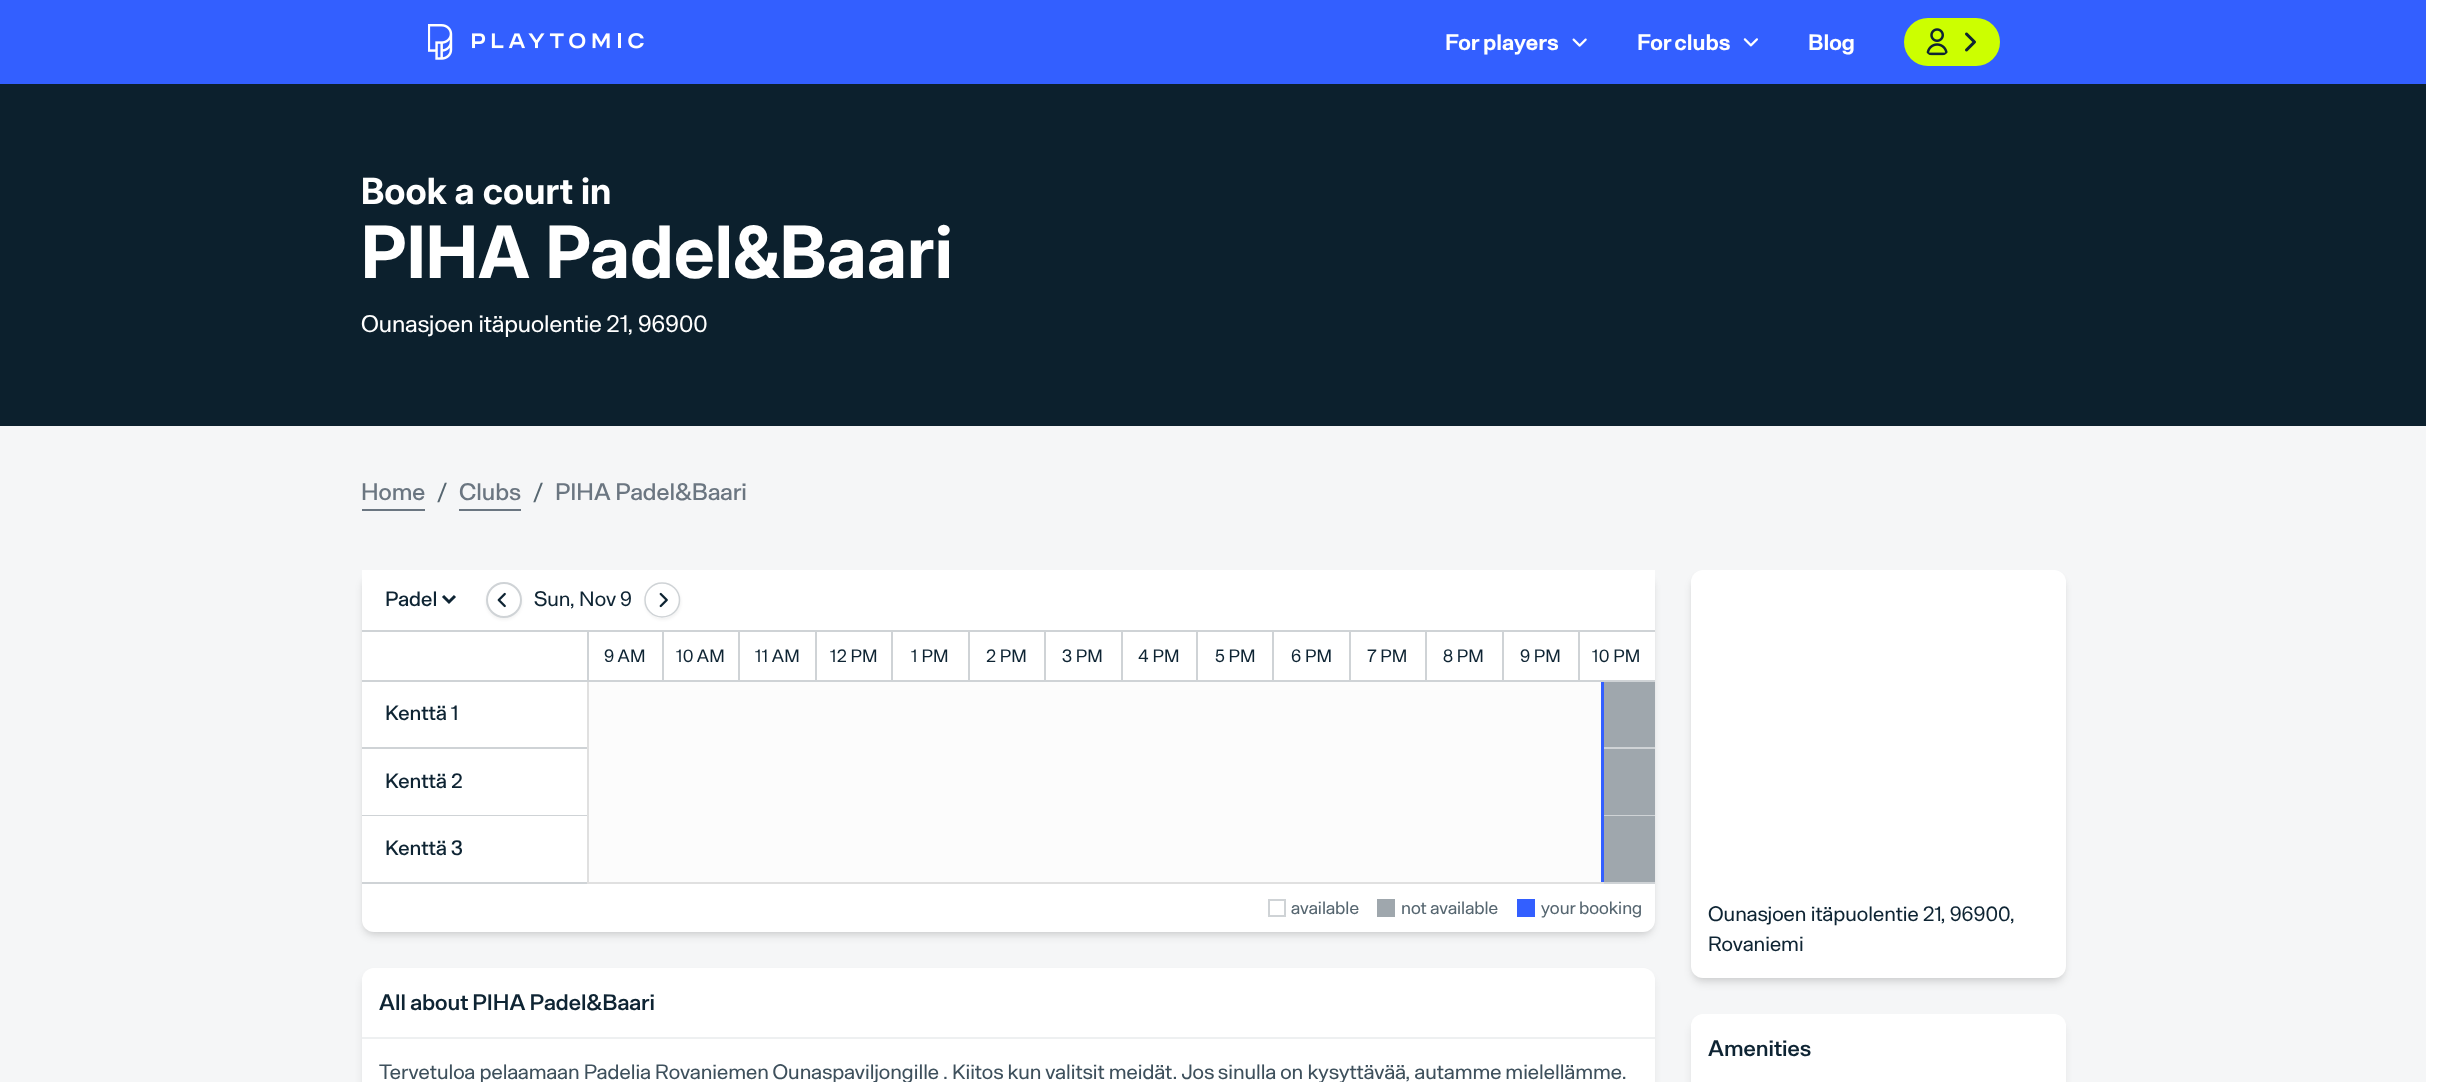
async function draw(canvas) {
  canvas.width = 2448;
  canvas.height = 1082;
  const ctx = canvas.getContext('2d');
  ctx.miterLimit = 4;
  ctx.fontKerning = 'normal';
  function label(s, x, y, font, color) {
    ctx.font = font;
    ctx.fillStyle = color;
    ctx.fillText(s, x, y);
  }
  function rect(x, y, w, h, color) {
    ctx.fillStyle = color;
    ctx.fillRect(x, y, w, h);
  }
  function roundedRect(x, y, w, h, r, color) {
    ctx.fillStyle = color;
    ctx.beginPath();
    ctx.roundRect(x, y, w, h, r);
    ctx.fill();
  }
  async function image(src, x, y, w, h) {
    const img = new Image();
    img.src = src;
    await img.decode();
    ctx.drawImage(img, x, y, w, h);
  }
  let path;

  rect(0, 0, 2448, 1082, '#fff');
  rect(0, 0, 2426, 84, '#335fff');
  await image('assets/img1.png', 428, 24, 216, 36);
  label('For players', 1445, 50, 'bold 22.5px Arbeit', '#fff');
  await image('assets/img2.png', 1572, 38, 15, 9);
  label('For clubs', 1637, 50, 'bold 22.5px Arbeit', '#fff');
  await image('assets/img3.png', 1743, 38, 15, 9);
  label('Blog', 1808, 50, 'bold 22.5px Arbeit', '#fff');
  roundedRect(1904, 18, 96, 48, 24, '#cf0');
  await image('assets/img4.png', 1926, 28, 22, 28);
  await image('assets/img5.png', 1965, 32, 11, 20);
  rect(0, 426, 2426, 656, '#f5f6f7');
  rect(0, 84, 2426, 342, '#0c202d');
  label('Book a court in', 361, 204, 'bold 36px Inter', '#fff');
  label('PIHA Padel&Baari', 361, 278, 'bold 72px Inter', '#fff');
  label('Ounasjoen itäpuolentie 21, 96900', 361, 332, '24px Arbeit', '#fff');
  label('Home', 361, 500, '500 24px Arbeit', '#6b7681');
  rect(362, 509, 63, 2, '#6b7681');
  label('/', 437, 500, '24px Arbeit', '#566670');
  label('Clubs', 459, 500, '500 24px Arbeit', '#6b7681');
  rect(459, 509, 62, 2, '#6b7681');
  label('/', 533, 500, '24px Arbeit', '#566670');
  label('PIHA Padel&Baari', 555, 500, '500 24px Arbeit', '#6b7681');
  ctx.fillStyle = '#0000001a';
  ctx.filter = 'blur(3px)';
  ctx.beginPath();
  ctx.roundRect(365, 576, 1287, 356, 9);
  ctx.fill();
  ctx.filter = 'none';
  ctx.filter = 'blur(4.5px)';
  ctx.beginPath();
  ctx.roundRect(363, 578, 1290, 358, 11);
  ctx.fill();
  ctx.filter = 'none';
  roundedRect(362, 570, 1293, 362, 12, '#fff');
  rect(362, 570, 1293, 10, '#fff');
  rect(362, 630, 1293, 2, '#cfd3d6');
  path = new Path2D('M443 596L449 602L455 596');
  ctx.strokeStyle = '#0e2433';
  ctx.lineWidth = 3;
  ctx.stroke(path);
  label('Padel', 385, 606, '500 21px Arbeit', '#0e2433');
  ctx.fillStyle = '#0000000d';
  ctx.filter = 'blur(1.5px)';
  ctx.beginPath();
  ctx.roundRect(486, 584, 36, 36, 18);
  ctx.fill();
  ctx.filter = 'none';
  ctx.fillStyle = '#fff';
  ctx.beginPath();
  ctx.arc(504, 600, 17, 0, 2 * Math.PI);
  ctx.fill();
  ctx.strokeStyle = '#cfd3d6';
  ctx.lineWidth = 2;
  ctx.stroke();
  await image('assets/img6.png', 497, 592, 9, 16);
  label('Sun, Nov 9', 534, 606, '21px Arbeit', '#0e2433');
  ctx.fillStyle = '#0000000d';
  ctx.filter = 'blur(1.5px)';
  ctx.beginPath();
  ctx.roundRect(645, 584, 36, 36, 18);
  ctx.fill();
  ctx.filter = 'none';
  ctx.fillStyle = '#fff';
  path = new Path2D('M662 618C652.5 618 644 610 644 600C644 590 652.5 582 662 582C672 582 680 590 680 600C680 610 672 618 662 618Z');
  ctx.fill(path);
  path = new Path2D('M662 617C652.5 617 645 609.5 645 600C645 590.5 652.5 583 662 583C672 583 679.5 590.5 679.5 600C679.5 609.5 672 617 662 617Z');
  ctx.lineWidth = 1.5;
  ctx.stroke(path);
  await image('assets/img7.png', 659, 592, 9, 16);
  rect(362, 747, 1293, 2, '#cfd3d6');
  rect(362, 815, 1293, 1, '#cfd3d6');
  rect(362, 882, 1293, 2, '#cfd3d6');
  rect(587, 882, 1017, 2, '#e0e0e0');
  rect(587, 680, 2, 204, '#e0e0e0');
  rect(1601, 681, 3, 201, '#335fff');
  rect(362, 680, 1293, 2, '#cfd3d6');
  rect(587, 632, 2, 48, '#cfd3d6');
  label('9 AM', 604, 662, '18px Arbeit', '#0e2433');
  rect(662, 632, 2, 48, '#cfd3d6');
  label('10 AM', 676, 662, '18px Arbeit', '#0e2433');
  rect(738, 632, 2, 48, '#cfd3d6');
  label('11 AM', 755, 662, '18px Arbeit', '#0e2433');
  rect(815, 632, 2, 48, '#cfd3d6');
  label('12 PM', 830, 662, '18px Arbeit', '#0e2433');
  rect(891, 632, 2, 48, '#cfd3d6');
  label('1 PM', 911, 662, '18px Arbeit', '#0e2433');
  rect(968, 632, 2, 48, '#cfd3d6');
  label('2 PM', 986, 662, '18px Arbeit', '#0e2433');
  rect(1044, 632, 2, 48, '#cfd3d6');
  label('3 PM', 1062, 662, '18px Arbeit', '#0e2433');
  rect(1121, 632, 2, 48, '#cfd3d6');
  label('4 PM', 1138, 662, '18px Arbeit', '#0e2433');
  rect(1196, 632, 2, 48, '#cfd3d6');
  label('5 PM', 1215, 662, '18px Arbeit', '#0e2433');
  rect(1272, 632, 2, 48, '#cfd3d6');
  label('6 PM', 1291, 662, '18px Arbeit', '#0e2433');
  rect(1349, 632, 2, 48, '#cfd3d6');
  label('7 PM', 1367, 662, '18px Arbeit', '#0e2433');
  rect(1425, 632, 2, 48, '#cfd3d6');
  label('8 PM', 1443, 662, '18px Arbeit', '#0e2433');
  rect(1502, 632, 2, 48, '#cfd3d6');
  label('9 PM', 1520, 662, '18px Arbeit', '#0e2433');
  rect(1578, 632, 2, 48, '#cfd3d6');
  label('10 PM', 1592, 662, '18px Arbeit', '#0e2433');
  label('Kenttä 1', 385, 720, '500 21px Arbeit', '#0e2433');
  rect(1604, 682, 51, 65, '#9fa7ad');
  label('Kenttä 2', 385, 788, '500 21px Arbeit', '#0e2433');
  rect(1604, 749, 51, 66, '#9fa7ad');
  label('Kenttä 3', 385, 855, '500 21px Arbeit', '#0e2433');
  rect(1604, 816, 51, 66, '#9fa7ad');
  rect(589, 682, 1012, 200, '#fcfcfc');
  ctx.lineWidth = 2;
  ctx.strokeRect(1269, 900, 16, 16);
  label('available', 1291, 914, '18px Arbeit', '#566670');
  rect(1377, 899, 18, 18, '#9fa7ad');
  label('not available', 1401, 914, '18px Arbeit', '#566670');
  rect(1517, 899, 18, 18, '#335fff');
  label('your booking', 1541, 914, '18px Arbeit', '#566670');
  ctx.fillStyle = '#0000001a';
  ctx.filter = 'blur(4.5px)';
  ctx.beginPath();
  ctx.roundRect(363, 975, 1290, 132, 11);
  ctx.fill();
  ctx.filter = 'none';
  roundedRect(362, 968, 1293, 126, 12, '#fff');
  rect(362, 1037, 1293, 2, '#eef0f1');
  label('All about PIHA Padel&Baari', 379, 1010, '600 22.5px Arbeit', '#0e2433');
  label('Tervetuloa pelaamaan Padelia Rovaniemen Ounaspaviljongille . Kiitos kun valitsit meidät. Jos sinulla on kysyttävää, autamme mielellämme.', 379, 1079, '21px Arbeit', '#3e505c');
  ctx.fillStyle = '#0000001a';
  ctx.filter = 'blur(3px)';
  ctx.beginPath();
  ctx.roundRect(1694, 576, 369, 402, 9);
  ctx.fill();
  ctx.filter = 'none';
  ctx.filter = 'blur(4.5px)';
  ctx.beginPath();
  ctx.roundRect(1692, 578, 372, 405, 11);
  ctx.fill();
  ctx.filter = 'none';
  roundedRect(1691, 570, 375, 408, 12, '#fff');
  label('Ounasjoen itäpuolentie 21', 1708, 921, '21px Arbeit', '#0e2433');
  label(', 96900,', 1941, 921, '21px Arbeit', '#0e2433');
  label('Rovaniemi', 1708, 951, '21px Arbeit', '#0e2433');
  ctx.fillStyle = '#0000001a';
  ctx.filter = 'blur(4.5px)';
  ctx.beginPath();
  ctx.roundRect(1692, 1022, 372, 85, 11);
  ctx.fill();
  ctx.filter = 'none';
  roundedRect(1691, 1014, 375, 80, 12, '#fff');
  label('Amenities', 1708, 1056, '600 22.5px Arbeit', '#0e2433');
}

draw(document.querySelector('canvas'));
